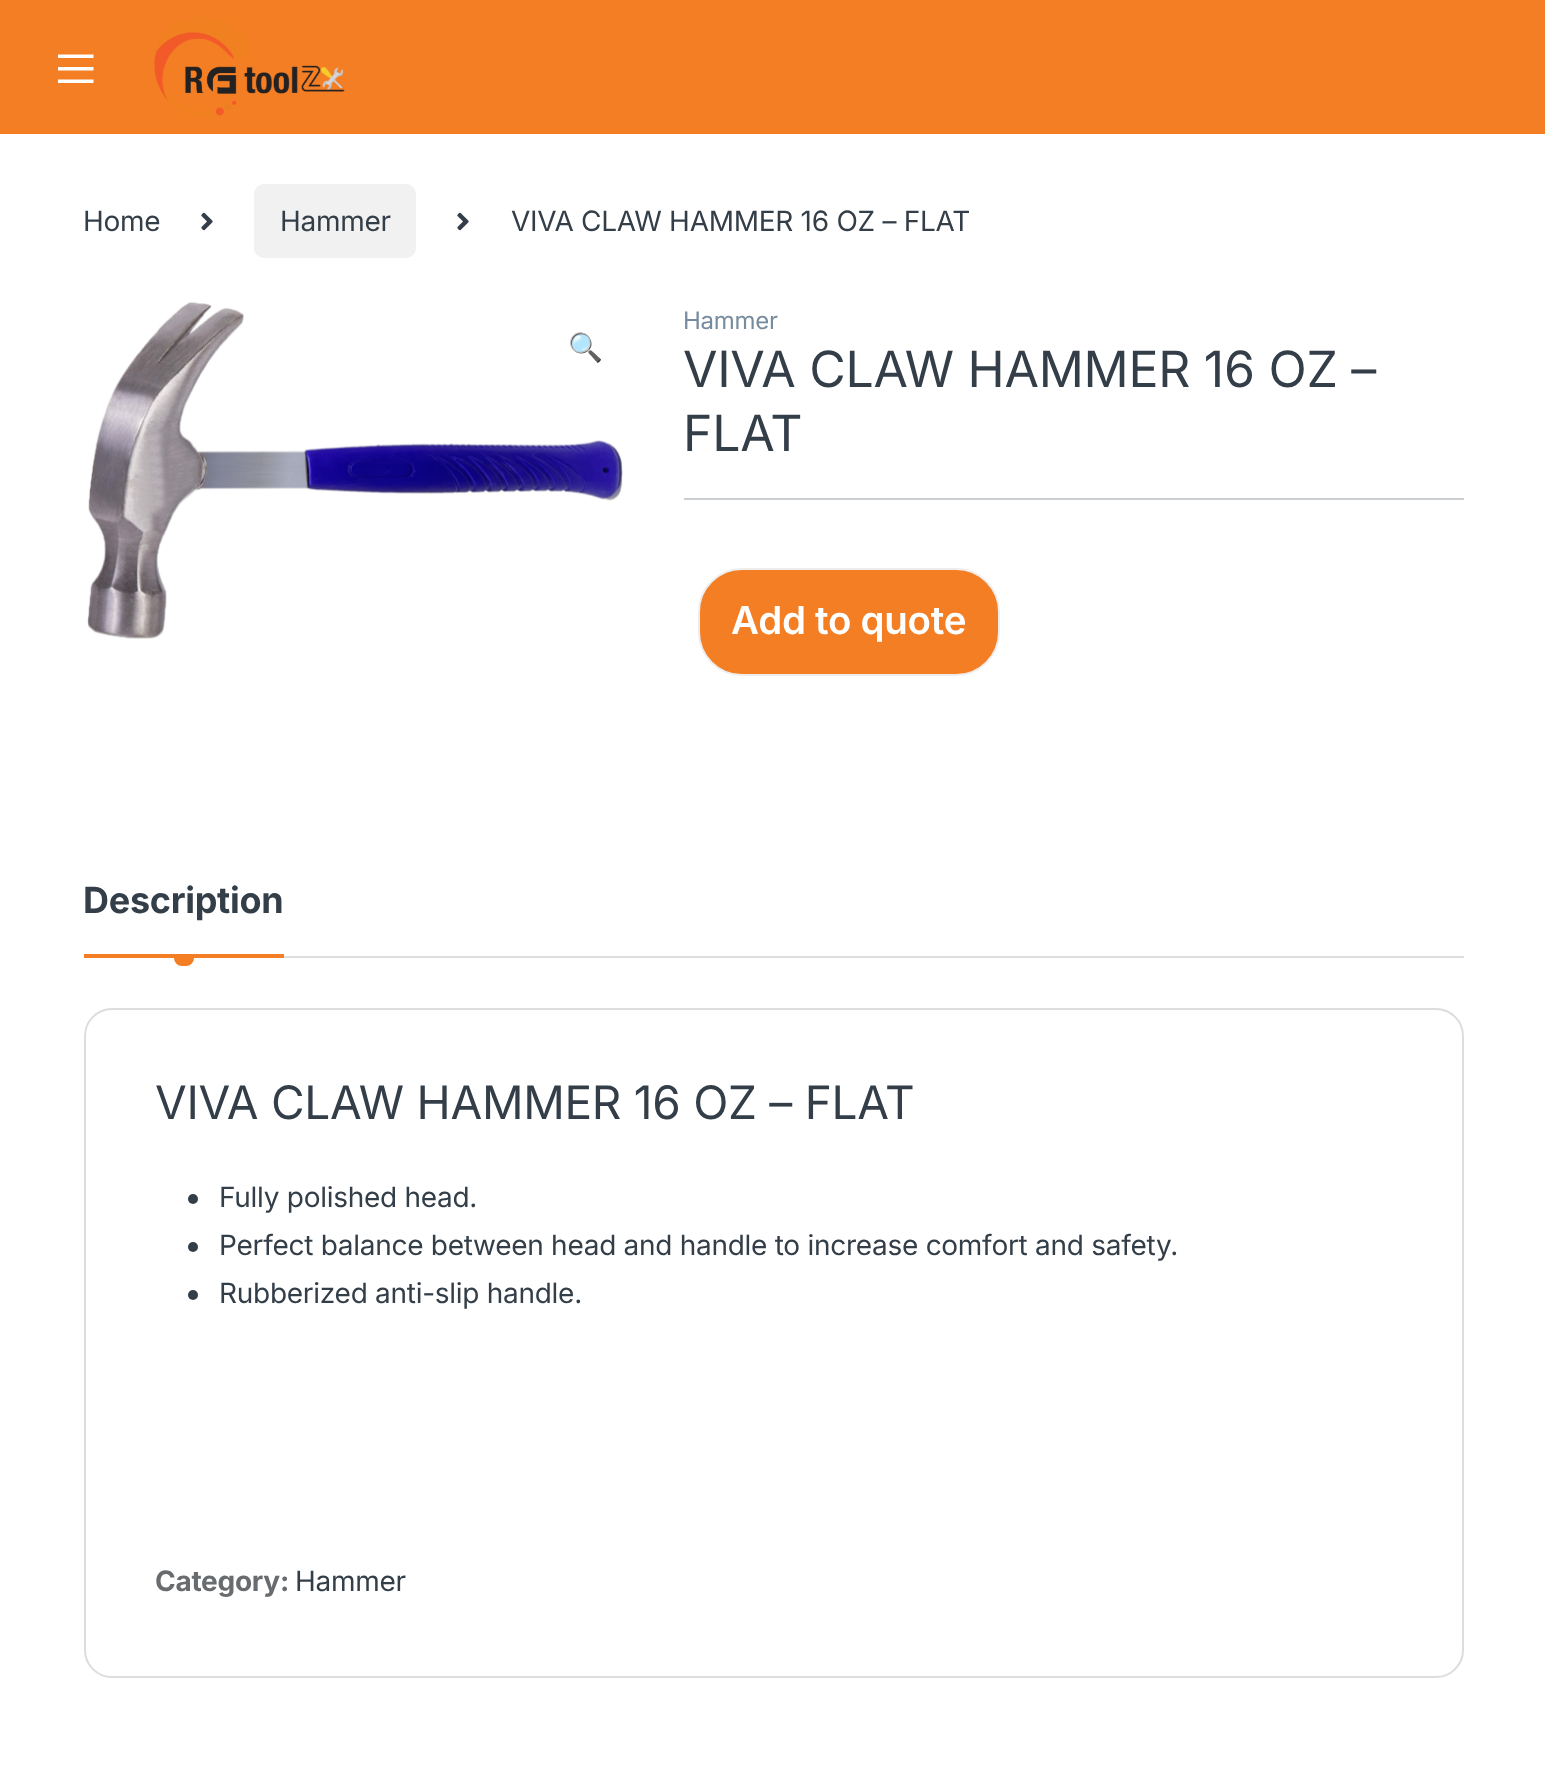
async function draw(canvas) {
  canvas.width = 1545;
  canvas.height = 1774;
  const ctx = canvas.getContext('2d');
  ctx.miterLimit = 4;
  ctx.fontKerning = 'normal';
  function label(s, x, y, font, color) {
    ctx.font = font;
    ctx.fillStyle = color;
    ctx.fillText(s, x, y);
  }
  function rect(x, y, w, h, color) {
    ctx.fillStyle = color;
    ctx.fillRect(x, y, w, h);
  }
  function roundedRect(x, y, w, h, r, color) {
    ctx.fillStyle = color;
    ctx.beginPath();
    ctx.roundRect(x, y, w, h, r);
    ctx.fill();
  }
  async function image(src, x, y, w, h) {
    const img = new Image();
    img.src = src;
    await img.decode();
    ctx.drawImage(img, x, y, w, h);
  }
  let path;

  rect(0, 0, 1545, 1774, '#fff');
  rect(0, 0, 1545, 134, '#f37e24');
  ctx.fillStyle = '#fff';
  path = new Path2D('M58 83V79.5H93.5V83ZM58 67H93.5V70.5H58ZM58 54.5H93.5V58H58Z');
  ctx.fill(path);
  await image('assets/img1.png', 154, 17, 191, 102);
  ctx.letterSpacing = '-0.28px';
  label('Home', 83, 231, '28px Inter', '#333e48');
  await image('assets/img2.png', 201, 212, 12, 19);
  roundedRect(254, 184, 162, 74, 10, '#f1f1f1');
  label('Hammer', 280, 231, '28px Inter', '#333e48');
  await image('assets/img2.png', 457, 212, 12, 19);
  label('VIVA CLAW HAMMER 16 OZ – FLAT', 511, 231, '28px Inter', '#333e48');
  await image('assets/img3.png', 87, 302, 536, 337);
  label('🔍', 568, 357, '28px Noto Color Emoji', '#333e48');
  label('Hammer', 683, 329, '24px Inter', '#768b9e');
  label('VIVA CLAW HAMMER 16 OZ –', 683, 387, '50px Inter', '#333e48');
  label('FLAT', 683, 451, '50px Inter', '#333e48');
  rect(684, 498, 780, 2, '#cccfd1');
  ctx.fillStyle = '#f37e24';
  ctx.beginPath();
  ctx.roundRect(699, 569, 300, 106, 43);
  ctx.fill();
  ctx.strokeStyle = '#efecec';
  ctx.lineWidth = 2;
  ctx.stroke();
  label('Add to quote', 731, 634, '600 38.5px Inter', '#fff');
  label('Description', 83, 913, 'bold 36px Inter', '#333e48');
  rect(84, 954, 200, 4, '#f37e24');
  ctx.beginPath();
  ctx.roundRect(174, 958, 20, 8, [0, 0, 8, 8]);
  ctx.fill();
  rect(284, 956, 1180, 2, '#ddd');
  ctx.beginPath();
  ctx.roundRect(85, 1009, 1378, 668, 27);
  ctx.strokeStyle = '#ddd';
  ctx.stroke();
  label('VIVA CLAW HAMMER 16 OZ – FLAT', 155, 1119, '46px Inter', '#333e48');
  ctx.beginPath();
  ctx.arc(193, 1199, 5, 0, 2 * Math.PI);
  ctx.fill();
  label('Fully polished head.', 219, 1207, '28px Inter', '#333e48');
  ctx.beginPath();
  ctx.arc(193, 1247, 5, 0, 2 * Math.PI);
  ctx.fill();
  label('Perfect balance between head and handle to increase comfort and safety.', 219, 1255, '28px Inter', '#333e48');
  ctx.beginPath();
  ctx.arc(193, 1295, 5, 0, 2 * Math.PI);
  ctx.fill();
  label('Rubberized anti-slip handle.', 219, 1303, '28px Inter', '#333e48');
  label('Category:', 155, 1591, 'bold 28px Inter', '#686c6f');
  label('Hammer', 295, 1591, '28px Inter', '#333e48');
}

draw(document.querySelector('canvas'));
